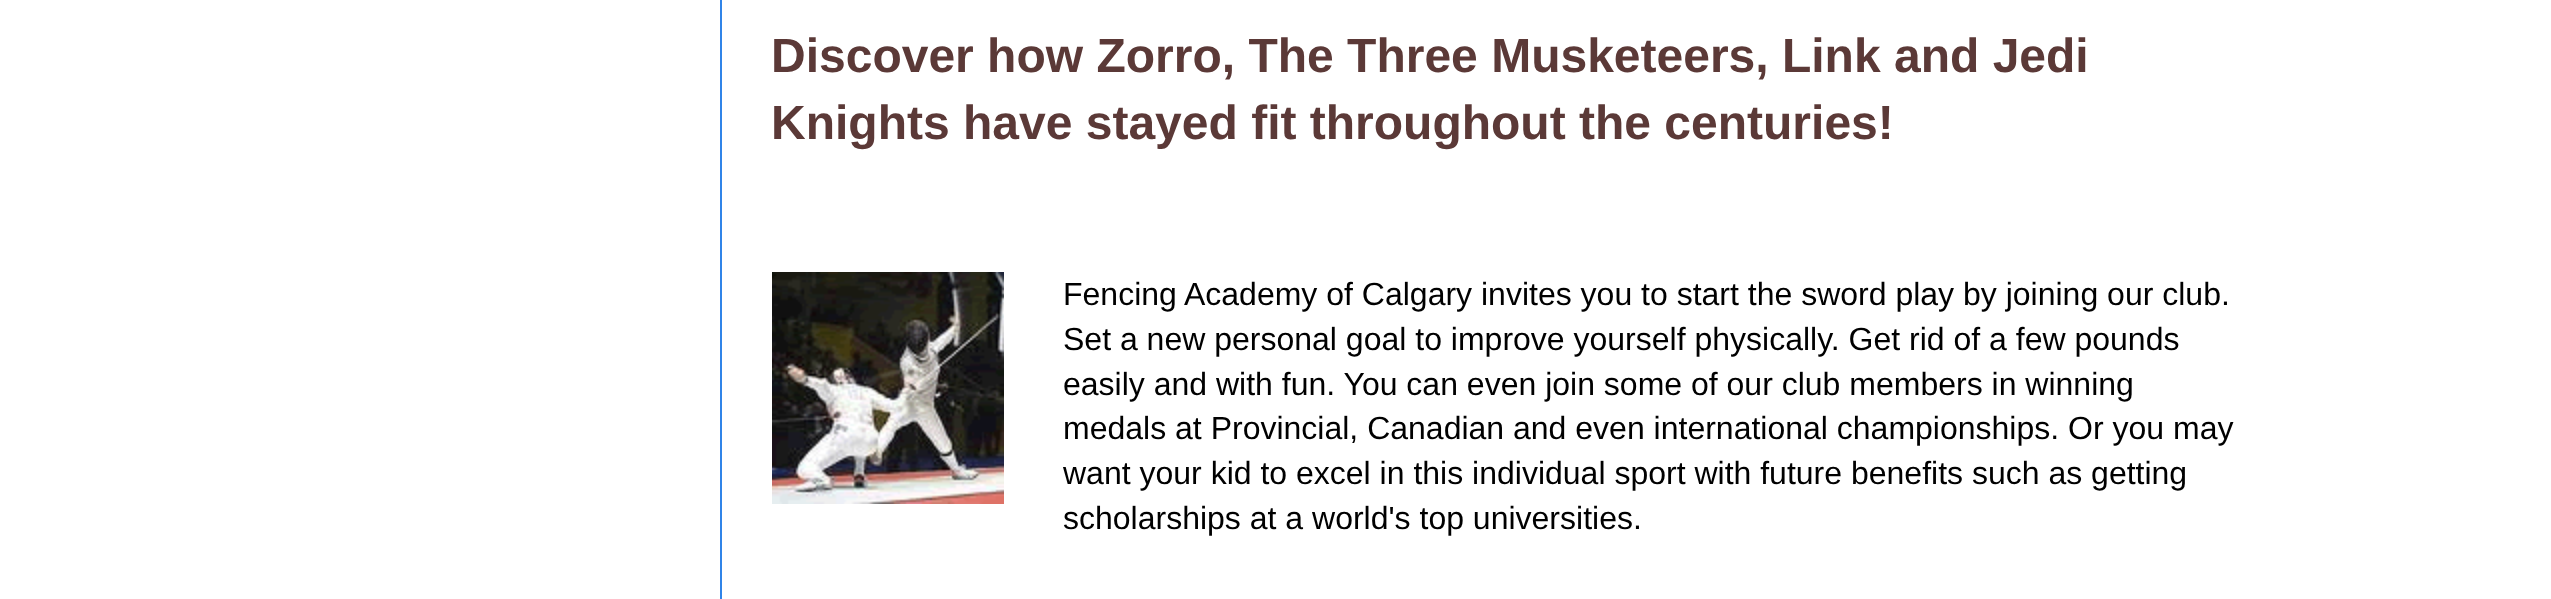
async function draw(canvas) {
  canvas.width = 2551;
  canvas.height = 599;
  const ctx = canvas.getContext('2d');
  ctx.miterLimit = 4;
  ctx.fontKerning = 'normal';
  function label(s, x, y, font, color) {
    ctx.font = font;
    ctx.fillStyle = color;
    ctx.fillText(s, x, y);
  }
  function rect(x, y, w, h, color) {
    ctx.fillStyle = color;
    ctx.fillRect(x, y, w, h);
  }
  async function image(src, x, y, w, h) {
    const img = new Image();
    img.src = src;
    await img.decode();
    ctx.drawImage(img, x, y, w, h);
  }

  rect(0, 0, 2551, 599, '#fff');
  rect(720, 0, 2, 599, '#3084e8');
  label('Discover how Zorro, The Three Musketeers, Link and Jedi', 771, 72, 'bold 48px Liberation Sans', '#5b3937');
  label('Knights have stayed fit throughout the centuries!', 771, 139, 'bold 48px Liberation Sans', '#5b3937');
  await image('assets/img1.png', 772, 272, 232, 232);
  label('Fencing Academy of Calgary invites you to start the sword play by joining our club.', 1063, 305, '32px Liberation Sans', '#000');
  label('Set a new personal goal to improve yourself physically. Get rid of a few pounds', 1063, 350, '32px Liberation Sans', '#000');
  label('easily and with fun. You can even join some of our club members in winning', 1063, 395, '32px Liberation Sans', '#000');
  label('medals at Provincial, Canadian and even international championships. Or you may', 1063, 439, '32px Liberation Sans', '#000');
  label('want your kid to excel in this individual sport with future benefits such as getting', 1063, 484, '32px Liberation Sans', '#000');
  label('scholarships at a world\'s top universities.', 1063, 529, '32px Liberation Sans', '#000');
}

draw(document.querySelector('canvas'));
